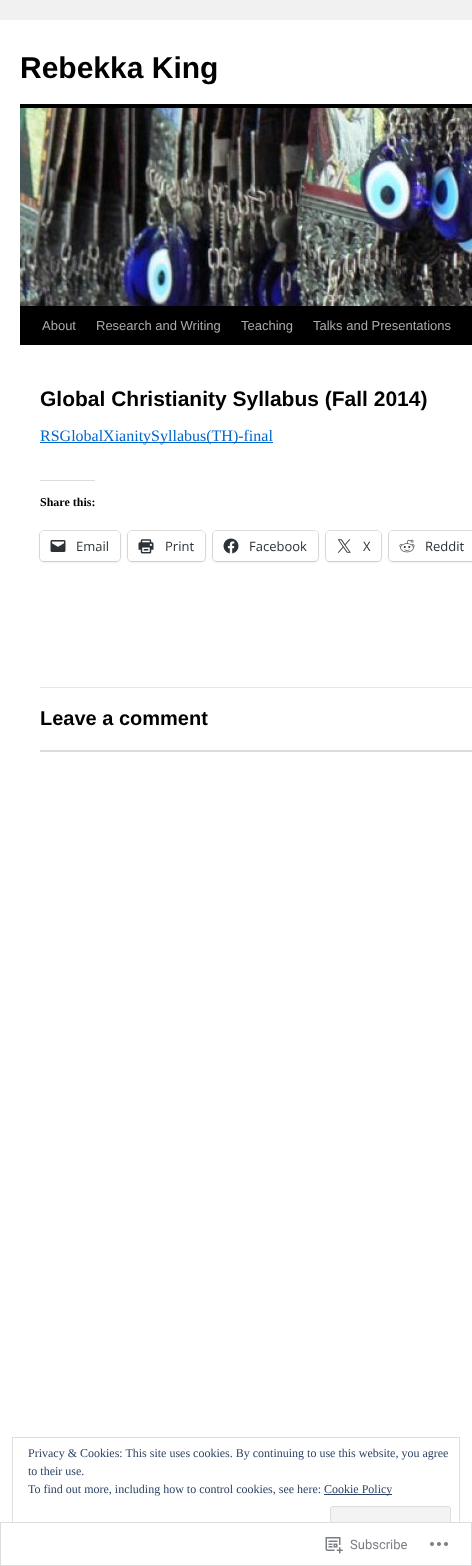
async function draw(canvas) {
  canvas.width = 472;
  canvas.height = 1566;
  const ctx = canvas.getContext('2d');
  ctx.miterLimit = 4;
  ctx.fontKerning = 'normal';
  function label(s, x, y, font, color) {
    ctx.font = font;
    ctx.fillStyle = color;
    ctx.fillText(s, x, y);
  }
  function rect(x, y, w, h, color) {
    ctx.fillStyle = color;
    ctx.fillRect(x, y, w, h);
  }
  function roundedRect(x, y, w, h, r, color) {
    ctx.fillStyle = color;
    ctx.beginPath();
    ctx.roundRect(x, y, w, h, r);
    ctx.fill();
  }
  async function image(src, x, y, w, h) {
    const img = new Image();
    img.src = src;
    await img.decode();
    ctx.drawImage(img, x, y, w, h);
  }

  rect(0, 0, 472, 1566, '#f1f1f1');
  rect(0, 20, 472, 1546, '#fff');
  label('Rebekka King', 20, 78, 'bold 30px Liberation Sans', '#000');
  rect(20, 104, 452, 4, '#000');
  rect(20, 306, 452, 39, '#000');
  await image('assets/img1.png', 20, 108, 452, 198);
  label('About', 42, 330, '13px Liberation Sans', '#aaa');
  label('Research and Writing', 96, 330, '13px Liberation Sans', '#aaa');
  label('Teaching', 241, 330, '13px Liberation Sans', '#aaa');
  label('Talks and Presentations', 313, 330, '13px Liberation Sans', '#aaa');
  label('Global Christianity Syllabus (Fall 2014)', 40, 406, 'bold 21px Liberation Sans', '#000');
  rect(40, 442, 233, 1, '#06c');
  label('RSGlobalXianitySyllabus(TH)-final', 40, 441, '16px Liberation Serif', '#06c');
  rect(40, 480, 55, 1, '#dcdcde');
  label('Share this:', 40, 506, 'bold 12px Liberation Serif', '#000');
  ctx.beginPath();
  ctx.roundRect(39.5, 530.5, 81, 31, 4.5);
  ctx.strokeStyle = '#e0e0e0';
  ctx.stroke();
  ctx.fillStyle = '#0000001f';
  ctx.filter = 'blur(1px)';
  ctx.beginPath();
  ctx.roundRect(40, 532, 80, 30, 4);
  ctx.fill();
  ctx.filter = 'none';
  roundedRect(40, 531, 80, 30, 4, '#fff');
  await image('assets/img2.png', 50, 540, 16, 12);
  label('Email', 76, 551, '13px Open Sans', '#2c3338');
  ctx.beginPath();
  ctx.roundRect(127.5, 530.5, 78, 31, 4.5);
  ctx.stroke();
  ctx.fillStyle = '#0000001f';
  ctx.filter = 'blur(1px)';
  ctx.beginPath();
  ctx.roundRect(128, 532, 77, 30, 4);
  ctx.fill();
  ctx.filter = 'none';
  roundedRect(128, 531, 77, 30, 4, '#fff');
  await image('assets/img3.png', 138, 539, 16, 15);
  label('Print', 165, 551, '13px Open Sans', '#2c3338');
  ctx.beginPath();
  ctx.roundRect(212.5, 530.5, 106, 31, 4.5);
  ctx.stroke();
  ctx.fillStyle = '#0000001f';
  ctx.filter = 'blur(1px)';
  ctx.beginPath();
  ctx.roundRect(213, 532, 105, 30, 4);
  ctx.fill();
  ctx.filter = 'none';
  roundedRect(213, 531, 105, 30, 4, '#fff');
  await image('assets/img4.png', 223, 538, 16, 16);
  label('Facebook', 249, 551, '13px Open Sans', '#2c3338');
  ctx.beginPath();
  ctx.roundRect(325.5, 530.5, 56, 31, 4.5);
  ctx.stroke();
  ctx.fillStyle = '#0000001f';
  ctx.filter = 'blur(1px)';
  ctx.beginPath();
  ctx.roundRect(326, 532, 55, 30, 4);
  ctx.fill();
  ctx.filter = 'none';
  roundedRect(326, 531, 55, 30, 4, '#fff');
  await image('assets/img5.png', 337, 539, 14, 14);
  label('X', 363, 551, '13px Open Sans', '#2c3338');
  ctx.beginPath();
  ctx.roundRect(388.5, 530.5, 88, 31, 4.5);
  ctx.stroke();
  ctx.fillStyle = '#0000001f';
  ctx.filter = 'blur(1px)';
  ctx.beginPath();
  ctx.roundRect(389, 532, 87, 30, 4);
  ctx.fill();
  ctx.filter = 'none';
  roundedRect(389, 531, 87, 30, 4, '#fff');
  await image('assets/img6.png', 399, 539, 16, 14);
  label('Reddit', 425, 551, '13px Open Sans', '#2c3338');
  rect(40, 687, 432, 1, '#e7e7e7');
  label('Leave a comment', 40, 725, 'bold 20px Liberation Sans', '#000');
  rect(40, 750, 432, 2, '#dcdcde');
  ctx.strokeStyle = '#dedede';
  ctx.strokeRect(12.5, 1437.5, 447, 116);
  label('Privacy & Cookies: This site uses cookies. By continuing to use this website, you agree', 28, 1457, '12px Liberation Serif', '#2e4467');
  label('to their use.', 28, 1475, '12px Liberation Serif', '#2e4467');
  label('To find out more, including how to control cookies, see here:', 28, 1493, '12px Liberation Serif', '#2e4467');
  rect(324, 1494, 68, 1, '#2e4467');
  label('Cookie Policy', 324, 1493, '12px Liberation Serif', '#2e4467');
  ctx.fillStyle = '#f3f3f3';
  ctx.beginPath();
  ctx.roundRect(330.5, 1506.5, 120, 38, 2.5);
  ctx.fill();
  ctx.stroke();
  rect(12, 1522, 448, 32, '#fffffffa');
  ctx.strokeStyle = '#dcdcdefa';
  ctx.strokeRect(0.5, 1522.5, 471, 43);
  await image('assets/img7.png', 325, 1537, 18, 17);
  label('Subscribe', 350, 1549, '13px Roboto', '#7b7f84');
  await image('assets/img8.png', 430, 1542, 18, 4);
}

draw(document.querySelector('canvas'));
